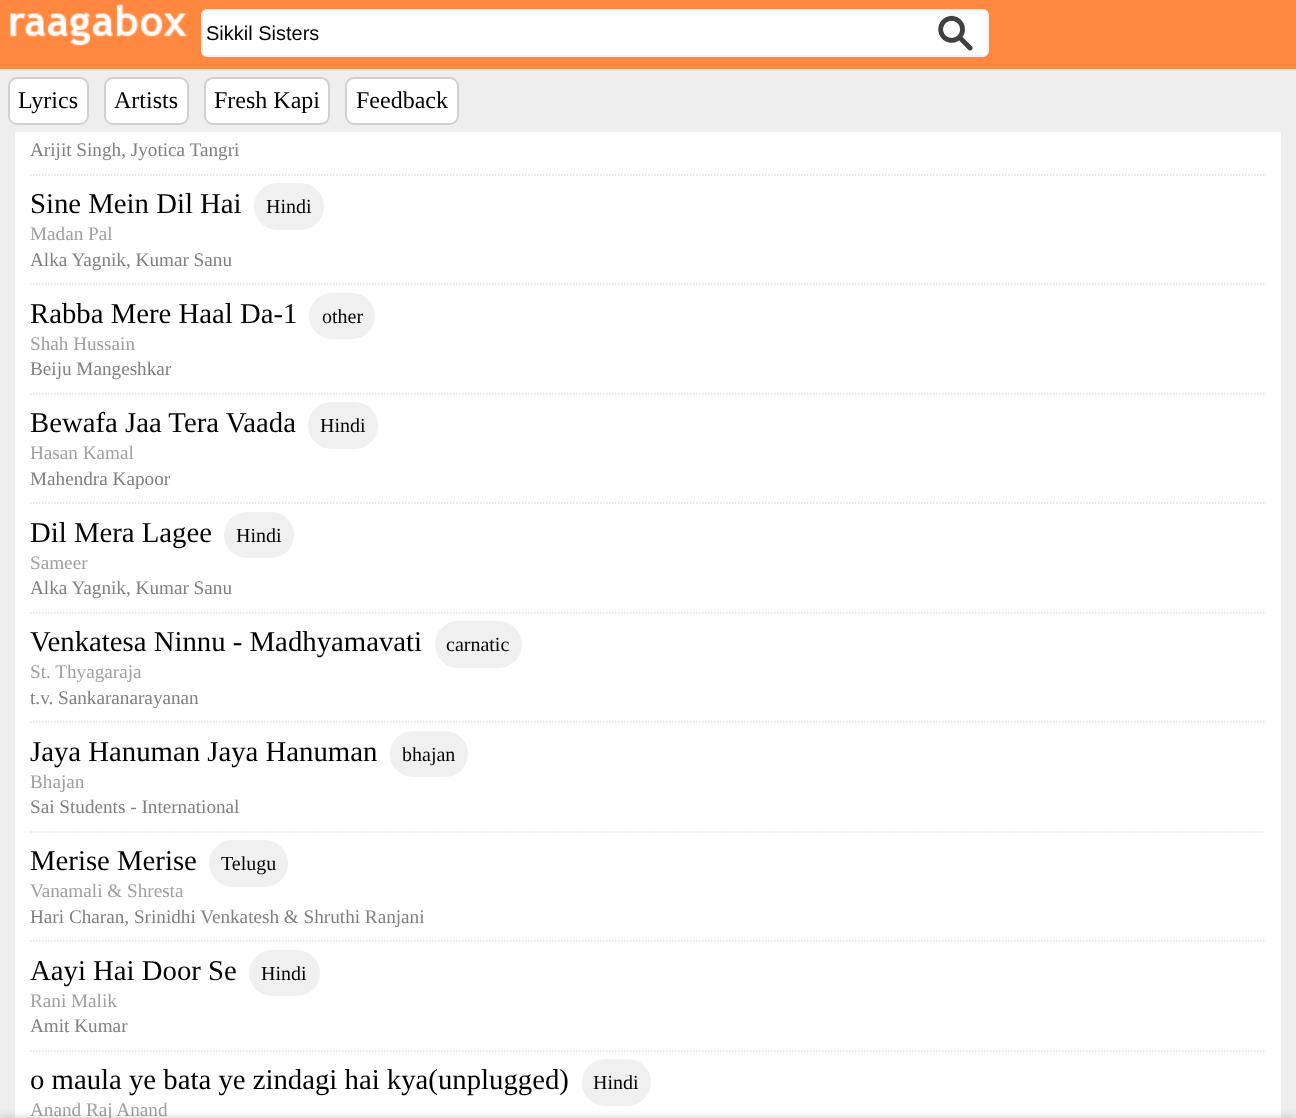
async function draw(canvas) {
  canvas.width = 1296;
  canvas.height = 1118;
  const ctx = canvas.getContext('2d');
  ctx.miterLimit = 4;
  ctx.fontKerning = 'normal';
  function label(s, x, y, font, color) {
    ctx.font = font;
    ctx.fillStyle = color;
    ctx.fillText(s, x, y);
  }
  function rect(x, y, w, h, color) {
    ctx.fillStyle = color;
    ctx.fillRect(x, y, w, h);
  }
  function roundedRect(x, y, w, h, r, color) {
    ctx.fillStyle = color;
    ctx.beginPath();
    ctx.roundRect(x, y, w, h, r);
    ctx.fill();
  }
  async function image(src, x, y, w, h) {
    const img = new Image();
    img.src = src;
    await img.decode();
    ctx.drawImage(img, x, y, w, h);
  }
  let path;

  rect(0, 0, 1296, 1118, '#eee');
  rect(0, 0, 1296, 69, '#ff8840');
  await image('assets/img1.png', 10, 4, 178, 42);
  ctx.fillStyle = '#fff';
  ctx.beginPath();
  ctx.roundRect(202, 10, 786, 46, 5);
  ctx.fill();
  ctx.strokeStyle = '#f0f0f0';
  ctx.lineWidth = 2;
  ctx.stroke();
  label('Sikkil Sisters', 206, 40, '20px Liberation Sans', '#000');
  await image('assets/img2.png', 938, 15, 35, 36);
  ctx.fillStyle = '#fff';
  ctx.beginPath();
  ctx.roundRect(9, 78, 79, 46, 8);
  ctx.fill();
  ctx.strokeStyle = '#d0d0d0';
  ctx.stroke();
  label('Lyrics', 18, 108, '24px Liberation Serif', '#000');
  ctx.fillStyle = '#fff';
  ctx.beginPath();
  ctx.roundRect(105, 78, 83, 46, 8);
  ctx.fill();
  ctx.stroke();
  label('Artists', 114, 108, '24px Liberation Serif', '#000');
  ctx.fillStyle = '#fff';
  ctx.beginPath();
  ctx.roundRect(205, 78, 124, 46, 8);
  ctx.fill();
  ctx.stroke();
  label('Fresh Kapi', 214, 108, '24px Liberation Serif', '#000');
  ctx.fillStyle = '#fff';
  ctx.beginPath();
  ctx.roundRect(346, 78, 112, 46, 8);
  ctx.fill();
  ctx.stroke();
  label('Feedback', 356, 108, '24px Liberation Serif', '#000');
  rect(15, 132, 1266, 986, '#fff');
  path = new Path2D('M30 175H1266');
  ctx.strokeStyle = '#e0e0e0';
  ctx.lineWidth = 1.5;
  ctx.setLineDash([1.5, 1.5]);
  ctx.stroke(path);
  label('Arijit Singh, Jyotica Tangri', 30, 156, '19.2px Liberation Serif', '#808080');
  path = new Path2D('M30 284H1266');
  ctx.stroke(path);
  label('Sine Mein Dil Hai', 30, 213, '28.75px Liberation Serif', '#000');
  roundedRect(254, 183, 70, 47, 23.5, '#f0f0f0');
  label('Hindi', 266, 213, '20px Liberation Serif', '#000');
  label('Madan Pal', 30, 240, '19.2px Liberation Serif', '#a0a0a0');
  label('Alka Yagnik, Kumar Sanu', 30, 266, '19.2px Liberation Serif', '#808080');
  path = new Path2D('M30 394H1266');
  ctx.stroke(path);
  label('Rabba Mere Haal Da-1', 30, 323, '28.75px Liberation Serif', '#000');
  roundedRect(309, 293, 66, 46, 23, '#f0f0f0');
  label('other', 322, 323, '20px Liberation Serif', '#000');
  label('Shah Hussain', 30, 350, '19.2px Liberation Serif', '#a0a0a0');
  label('Beiju Mangeshkar', 30, 375, '19.2px Liberation Serif', '#808080');
  path = new Path2D('M30 503H1266');
  ctx.stroke(path);
  label('Bewafa Jaa Tera Vaada', 30, 432, '28.75px Liberation Serif', '#000');
  roundedRect(308, 402, 70, 47, 23.5, '#f0f0f0');
  label('Hindi', 320, 432, '20px Liberation Serif', '#000');
  label('Hasan Kamal', 30, 459, '19.2px Liberation Serif', '#a0a0a0');
  label('Mahendra Kapoor', 30, 485, '19.2px Liberation Serif', '#808080');
  path = new Path2D('M30 613H1266');
  ctx.stroke(path);
  label('Dil Mera Lagee', 30, 542, '28.75px Liberation Serif', '#000');
  roundedRect(224, 512, 70, 46, 23, '#f0f0f0');
  label('Hindi', 236, 542, '20px Liberation Serif', '#000');
  label('Sameer', 30, 569, '19.2px Liberation Serif', '#a0a0a0');
  label('Alka Yagnik, Kumar Sanu', 30, 594, '19.2px Liberation Serif', '#808080');
  path = new Path2D('M30 722H1266');
  ctx.stroke(path);
  label('Venkatesa Ninnu - Madhyamavati', 30, 651, '28.75px Liberation Serif', '#000');
  roundedRect(435, 621, 87, 47, 23.5, '#f0f0f0');
  label('carnatic', 446, 651, '20px Liberation Serif', '#000');
  label('St. Thyagaraja', 30, 678, '19.2px Liberation Serif', '#a0a0a0');
  label('t.v. Sankaranarayanan', 30, 704, '19.2px Liberation Serif', '#808080');
  path = new Path2D('M30 832H1266');
  ctx.stroke(path);
  label('Jaya Hanuman Jaya Hanuman', 30, 761, '28.75px Liberation Serif', '#000');
  roundedRect(390, 731, 78, 46, 23, '#f0f0f0');
  label('bhajan', 402, 761, '20px Liberation Serif', '#000');
  label('Bhajan', 30, 788, '19.2px Liberation Serif', '#a0a0a0');
  label('Sai Students - International', 30, 813, '19.2px Liberation Serif', '#808080');
  path = new Path2D('M30 941H1266');
  ctx.stroke(path);
  label('Merise Merise', 30, 870, '28.75px Liberation Serif', '#000');
  roundedRect(209, 840, 79, 47, 23.5, '#f0f0f0');
  label('Telugu', 221, 870, '20px Liberation Serif', '#000');
  label('Vanamali & Shresta', 30, 897, '19.2px Liberation Serif', '#a0a0a0');
  label('Hari Charan, Srinidhi Venkatesh & Shruthi Ranjani', 30, 923, '19.2px Liberation Serif', '#808080');
  path = new Path2D('M30 1051H1266');
  ctx.stroke(path);
  label('Aayi Hai Door Se', 30, 980, '28.75px Liberation Serif', '#000');
  roundedRect(249, 950, 71, 46, 23, '#f0f0f0');
  label('Hindi', 261, 980, '20px Liberation Serif', '#000');
  label('Rani Malik', 30, 1007, '19.2px Liberation Serif', '#a0a0a0');
  label('Amit Kumar', 30, 1032, '19.2px Liberation Serif', '#808080');
  label('o maula ye bata ye zindagi hai kya(unplugged)', 30, 1089, '28.75px Liberation Serif', '#000');
  roundedRect(582, 1059, 69, 47, 23.5, '#f0f0f0');
  label('Hindi', 593, 1089, '20px Liberation Serif', '#000');
  label('Anand Raj Anand', 30, 1116, '19.2px Liberation Serif', '#a0a0a0');
  ctx.fillStyle = '#00000040';
  ctx.filter = 'blur(5px)';
  ctx.beginPath();
  ctx.rect(0, 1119, 1296, 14);
  ctx.fill();
  ctx.filter = 'none';
}

draw(document.querySelector('canvas'));
